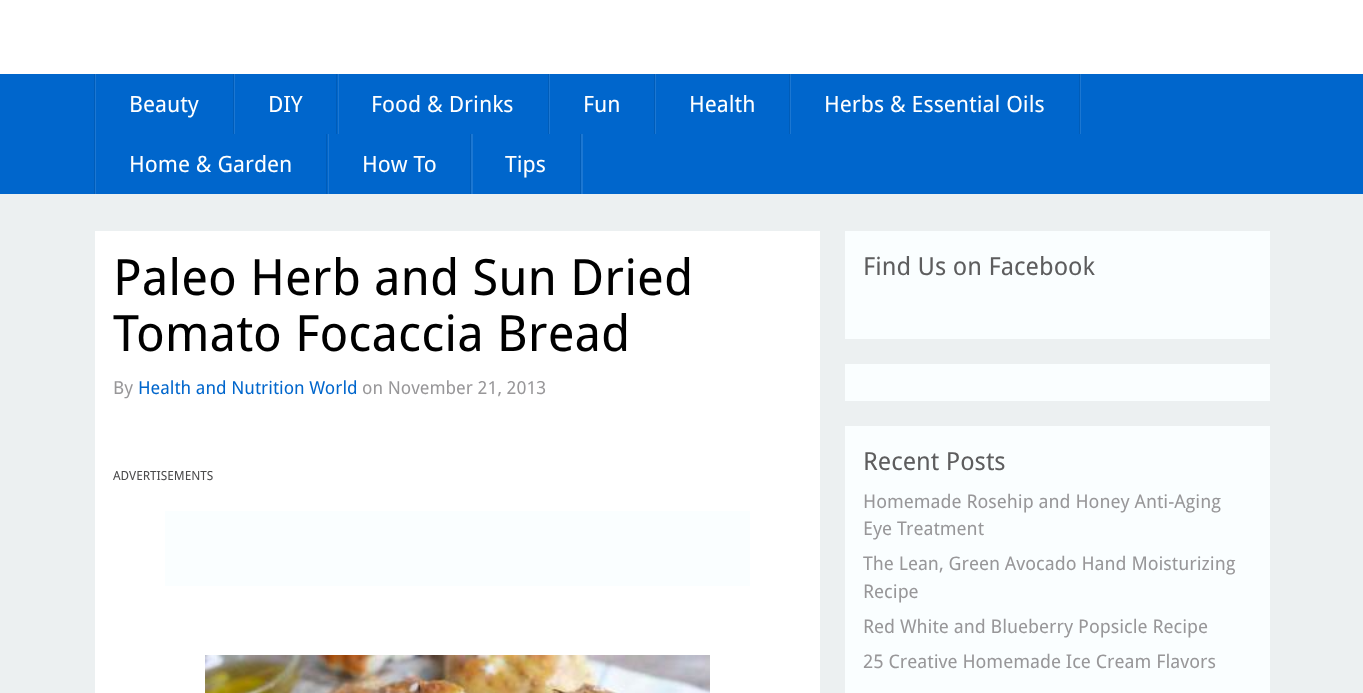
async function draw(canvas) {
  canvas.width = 1363;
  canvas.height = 693;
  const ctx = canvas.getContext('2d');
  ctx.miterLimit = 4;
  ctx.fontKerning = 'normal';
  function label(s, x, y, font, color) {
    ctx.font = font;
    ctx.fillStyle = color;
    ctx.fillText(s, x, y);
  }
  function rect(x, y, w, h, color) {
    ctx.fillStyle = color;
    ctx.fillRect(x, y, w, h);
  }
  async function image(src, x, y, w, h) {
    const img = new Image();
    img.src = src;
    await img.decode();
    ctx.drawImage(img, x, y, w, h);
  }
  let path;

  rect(0, 0, 1363, 693, '#ecf0f1');
  rect(0, 0, 1363, 74, '#fff');
  rect(0, 74, 1363, 120, '#06c');
  ctx.fillStyle = '#005cb8';
  path = new Path2D('M94 74V194H1269H95V74Z');
  ctx.fill(path);
  rect(95, 74, 1, 120, '#1c77d2');
  path = new Path2D('M98 134H235V74H234V134Z');
  ctx.fill(path);
  rect(233, 74, 1, 60, '#005cb8');
  label('Beauty', 129, 112, '22.5px Droid Sans', '#fff');
  ctx.fillStyle = '#1c77d2';
  path = new Path2D('M235 134H339V74H338V134Z');
  ctx.fill(path);
  rect(336, 74, 1, 60, '#005cb8');
  label('DIY', 268, 112, '22.5px Droid Sans', '#fff');
  ctx.fillStyle = '#1c77d2';
  path = new Path2D('M339 134H550V74H549V134Z');
  ctx.fill(path);
  rect(548, 74, 1, 60, '#005cb8');
  label('Food & Drinks', 371, 112, '22.5px Droid Sans', '#fff');
  ctx.fillStyle = '#1c77d2';
  path = new Path2D('M550 134H656V74H655V134Z');
  ctx.fill(path);
  rect(654, 74, 1, 60, '#005cb8');
  label('Fun', 583, 112, '22.5px Droid Sans', '#fff');
  ctx.fillStyle = '#1c77d2';
  path = new Path2D('M656 134H791V74H790V134Z');
  ctx.fill(path);
  rect(789, 74, 1, 60, '#005cb8');
  label('Health', 689, 112, '22.5px Droid Sans', '#fff');
  ctx.fillStyle = '#1c77d2';
  path = new Path2D('M791 134H1081V74H1080V134Z');
  ctx.fill(path);
  rect(1079, 74, 1, 60, '#005cb8');
  label('Herbs & Essential Oils', 824, 112, '22.5px Droid Sans', '#fff');
  ctx.fillStyle = '#1c77d2';
  path = new Path2D('M98 194H329V134H328V194Z');
  ctx.fill(path);
  rect(326, 134, 1, 60, '#005cb8');
  label('Home & Garden', 129, 172, '22.5px Droid Sans', '#fff');
  ctx.fillStyle = '#1c77d2';
  path = new Path2D('M329 194H473V134H471V194Z');
  ctx.fill(path);
  rect(470, 134, 1, 60, '#005cb8');
  label('How To', 362, 172, '22.5px Droid Sans', '#fff');
  ctx.fillStyle = '#1c77d2';
  path = new Path2D('M473 194H583V134H581V194Z');
  ctx.fill(path);
  rect(580, 134, 1, 60, '#005cb8');
  label('Tips', 505, 172, '22.5px Droid Sans', '#fff');
  rect(95, 231, 725, 462, '#fff');
  label('Paleo Herb and Sun Dried', 113, 295, '50px Droid Sans', '#000');
  label('Tomato Focaccia Bread', 113, 351, '50px Droid Sans', '#000');
  label('By', 113, 394, '18px Droid Sans', '#989799');
  label('Health and Nutrition World', 138, 394, '18px Droid Sans', '#06c');
  label('on November 21, 2013', 362, 394, '18px Droid Sans', '#989799');
  label('ADVERTISEMENTS', 113, 480, '12.5px Droid Sans', '#4b4b4c');
  rect(165, 511, 585, 75, '#fafeff');
  await image('assets/img1.png', 205, 655, 505, 38);
  rect(845, 231, 425, 108, '#fafeff');
  label('Find Us on Facebook', 863, 275, '25px Droid Sans', '#5d5d5e');
  rect(845, 364, 425, 37, '#fafeff');
  rect(845, 426, 425, 267, '#fafeff');
  label('Recent Posts', 863, 470, '25px Droid Sans', '#5d5d5e');
  label('Homemade Rosehip and Honey Anti-Aging', 863, 508, '18.75px Droid Sans', '#989799');
  label('Eye Treatment', 863, 535, '18.75px Droid Sans', '#989799');
  label('The Lean, Green Avocado Hand Moisturizing', 863, 570, '18.75px Droid Sans', '#989799');
  label('Recipe', 863, 598, '18.75px Droid Sans', '#989799');
  label('Red White and Blueberry Popsicle Recipe', 863, 633, '18.75px Droid Sans', '#989799');
  label('25 Creative Homemade Ice Cream Flavors', 863, 668, '18.75px Droid Sans', '#989799');
}

draw(document.querySelector('canvas'));
